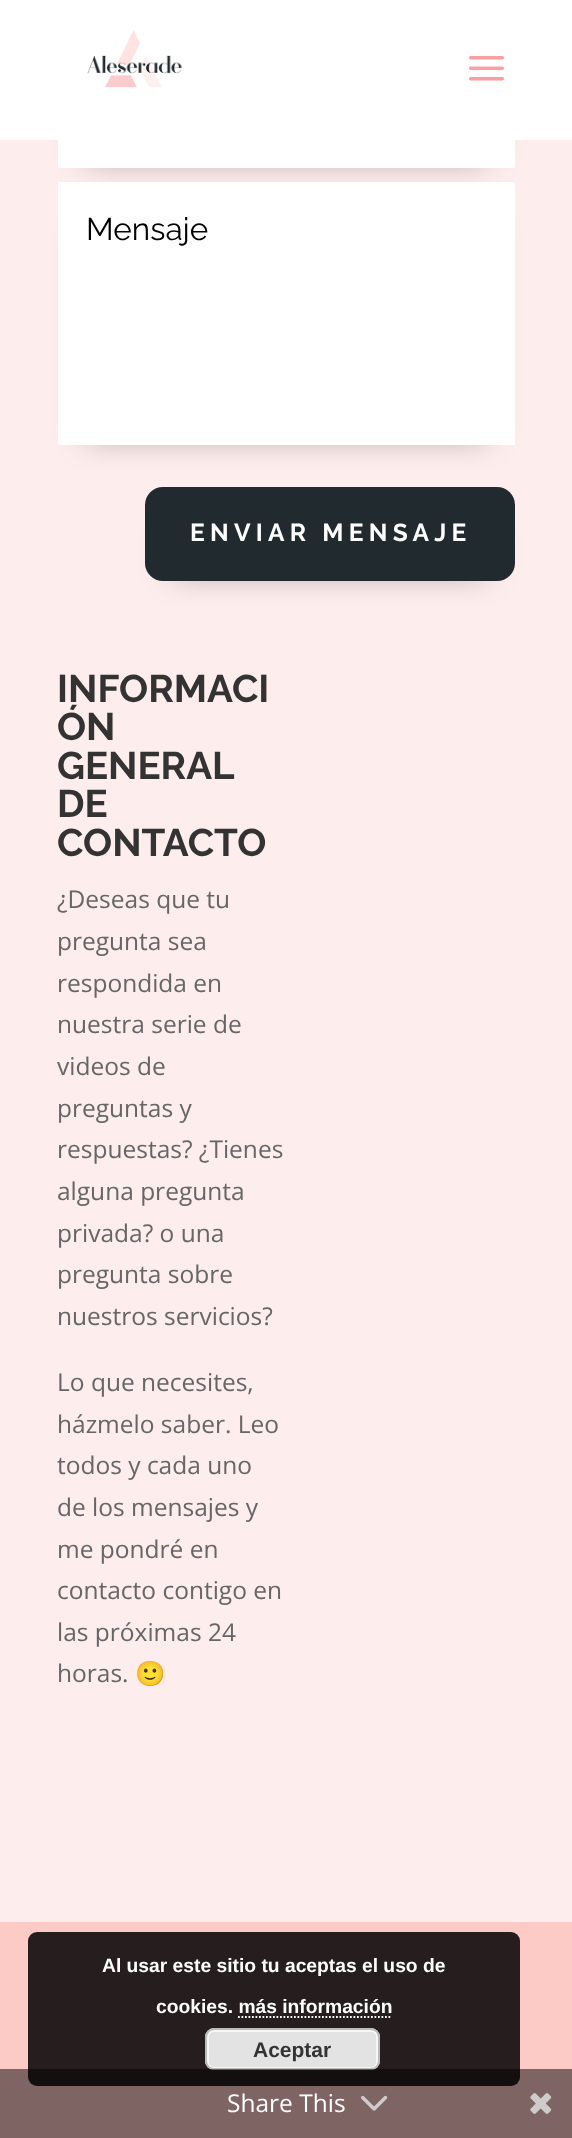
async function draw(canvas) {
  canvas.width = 572;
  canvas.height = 2138;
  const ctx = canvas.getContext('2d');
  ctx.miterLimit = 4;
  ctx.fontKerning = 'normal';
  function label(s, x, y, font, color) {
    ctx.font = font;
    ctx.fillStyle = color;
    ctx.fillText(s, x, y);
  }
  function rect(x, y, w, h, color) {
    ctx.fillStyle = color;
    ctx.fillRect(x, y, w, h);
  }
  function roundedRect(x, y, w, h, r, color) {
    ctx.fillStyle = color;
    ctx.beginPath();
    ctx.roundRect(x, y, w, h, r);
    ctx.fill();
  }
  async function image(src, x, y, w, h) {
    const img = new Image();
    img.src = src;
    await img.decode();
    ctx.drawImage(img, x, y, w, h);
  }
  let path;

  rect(0, 0, 572, 2138, '#fccbc6');
  rect(0, 140, 572, 1782, '#fdeded');
  ctx.fillStyle = '#0000004d';
  ctx.filter = 'blur(16px)';
  ctx.beginPath();
  ctx.rect(86, 116, 401, 45);
  ctx.fill();
  ctx.filter = 'none';
  rect(0, 0, 572, 140, '#fff');
  await image('assets/img1.png', 87, 30, 95, 58);
  await image('assets/img2.png', 469, 56, 35, 25);
  rect(58, 140, 457, 28, '#fff');
  ctx.fillStyle = '#0000004d';
  ctx.filter = 'blur(16px)';
  ctx.beginPath();
  ctx.rect(86, 231, 401, 207);
  ctx.fill();
  ctx.filter = 'none';
  rect(58, 182, 457, 263, '#fff');
  label('Mensaje', 86, 240, '100 31.5px Raleway', '#000');
  ctx.fillStyle = '#0000004d';
  ctx.filter = 'blur(16px)';
  ctx.beginPath();
  ctx.rect(173, 536, 314, 38);
  ctx.fill();
  ctx.filter = 'none';
  roundedRect(145, 487, 370, 94, 18, '#212a2f');
  ctx.letterSpacing = '5.25px';
  label('ENVIAR MENSAJE', 190, 541, '100 24.5px "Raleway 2"', '#fff');
  ctx.letterSpacing = '0px';
  label('INFORMACI', 57, 702, '100 38.5px "Raleway 2"', '#333');
  label('ÓN', 57, 740, '100 38.5px "Raleway 2"', '#333');
  label('GENERAL', 57, 779, '100 38.5px "Raleway 2"', '#333');
  label('DE', 57, 817, '100 38.5px "Raleway 2"', '#333');
  label('CONTACTO', 57, 856, '100 38.5px "Raleway 2"', '#333');
  label('¿Deseas que tu', 57, 908, '24.5px Open Sans', '#666');
  label('pregunta sea', 57, 950, '24.5px Open Sans', '#666');
  label('respondida en', 57, 992, '24.5px Open Sans', '#666');
  label('nuestra serie de', 57, 1033, '24.5px Open Sans', '#666');
  label('videos de', 57, 1075, '24.5px Open Sans', '#666');
  label('preguntas y', 57, 1117, '24.5px Open Sans', '#666');
  label('respuestas? ¿Tienes', 57, 1158, '24.5px Open Sans', '#666');
  label('alguna pregunta', 57, 1200, '24.5px Open Sans', '#666');
  label('privada? o una', 57, 1242, '24.5px Open Sans', '#666');
  label('pregunta sobre', 57, 1283, '24.5px Open Sans', '#666');
  label('nuestros servicios?', 57, 1325, '24.5px Open Sans', '#666');
  label('Lo que necesites,', 57, 1391, '24.5px Open Sans', '#666');
  label('házmelo saber. Leo', 57, 1433, '24.5px Open Sans', '#666');
  label('todos y cada uno', 57, 1474, '24.5px Open Sans', '#666');
  label('de los mensajes y', 57, 1516, '24.5px Open Sans', '#666');
  label('me pondré en', 57, 1558, '24.5px Open Sans', '#666');
  label('contacto contigo en', 57, 1599, '24.5px Open Sans', '#666');
  label('las próximas 24', 57, 1641, '24.5px Open Sans', '#666');
  label('horas.', 57, 1682, '24.5px Open Sans', '#666');
  label('🙂', 135, 1682, '24.5px Noto Color Emoji', '#666');
  roundedRect(28, 1932, 492, 154, 9, '#000000d9');
  label('Al usar este sitio tu aceptas el uso de', 102, 1972, 'bold 19.25px Liberation Sans', '#fff');
  label('cookies. más información', 156, 2013, 'bold 19.25px Liberation Sans', '#fff');
  path = new Path2D('M238 2017H392');
  ctx.strokeStyle = '#fff';
  ctx.lineWidth = 1.8;
  ctx.setLineDash([1.75, 1.75]);
  ctx.stroke(path);
  roundedRect(205, 2028, 175, 42, 9, '#e3e3e3');
  ctx.beginPath();
  ctx.roundRect(208, 2031, 169, 37, 6);
  ctx.strokeStyle = '#f6f6f6';
  ctx.lineWidth = 2;
  ctx.setLineDash([]);
  ctx.stroke();
  ctx.beginPath();
  ctx.roundRect(206, 2029, 173, 40, 8);
  ctx.strokeStyle = '#bbb';
  ctx.stroke();
  label('Aceptar', 253, 2057, 'bold 21px Liberation Sans', '#333');
  rect(0, 2069, 572, 69, '#00000080');
  label('Share This', 227, 2112, '24.5px Open Sans', '#fff');
  await image('assets/img3.png', 361, 2095, 27, 16);
  await image('assets/img4.png', 530, 2093, 22, 21);
}

draw(document.querySelector('canvas'));
